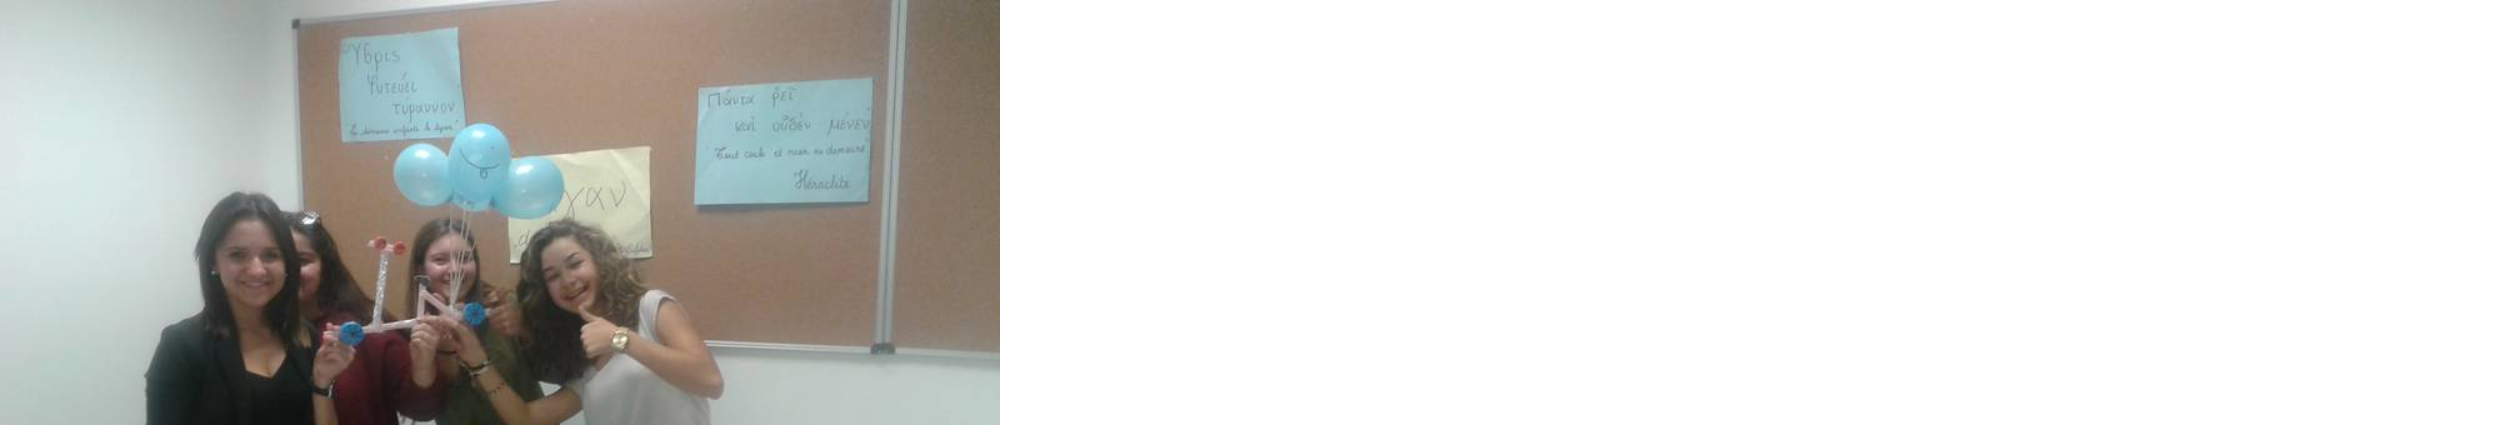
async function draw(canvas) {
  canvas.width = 2517;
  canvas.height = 425;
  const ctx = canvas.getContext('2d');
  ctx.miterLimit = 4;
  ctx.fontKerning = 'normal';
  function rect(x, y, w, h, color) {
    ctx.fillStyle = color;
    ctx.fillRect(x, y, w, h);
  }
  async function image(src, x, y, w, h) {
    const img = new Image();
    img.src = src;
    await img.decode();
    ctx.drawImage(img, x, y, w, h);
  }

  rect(0, 0, 2517, 425, '#fff');
  await image('assets/img1.png', 0, 0, 1000, 425);
}

draw(document.querySelector('canvas'));
